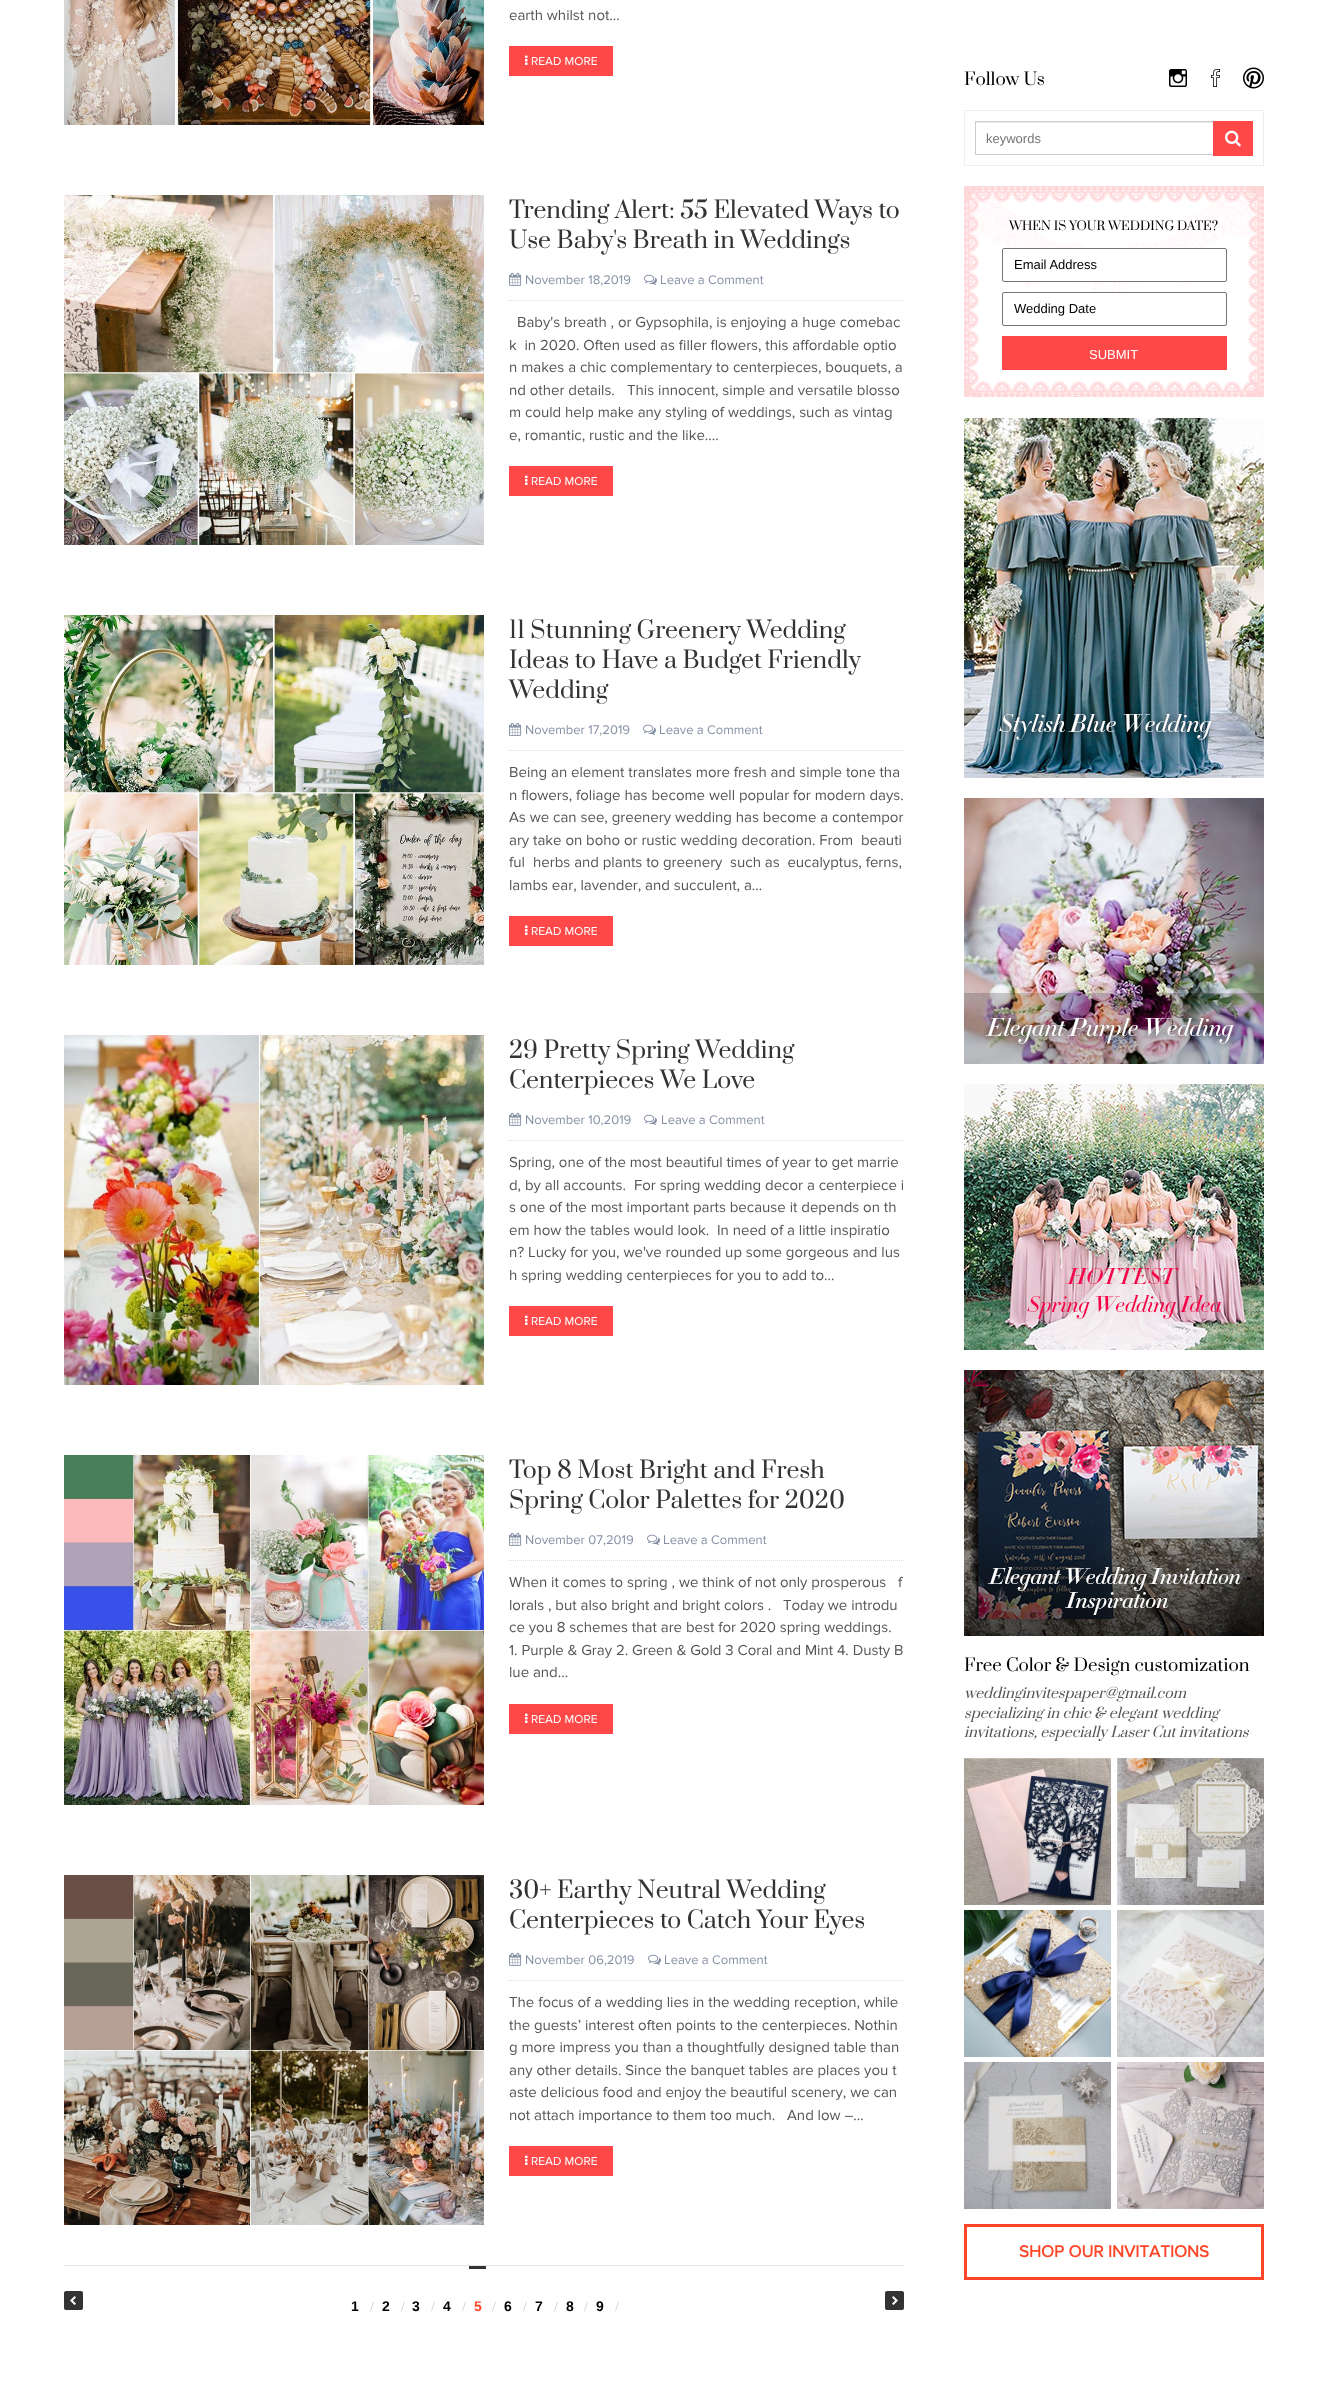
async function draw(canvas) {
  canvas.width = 1328;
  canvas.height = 2394;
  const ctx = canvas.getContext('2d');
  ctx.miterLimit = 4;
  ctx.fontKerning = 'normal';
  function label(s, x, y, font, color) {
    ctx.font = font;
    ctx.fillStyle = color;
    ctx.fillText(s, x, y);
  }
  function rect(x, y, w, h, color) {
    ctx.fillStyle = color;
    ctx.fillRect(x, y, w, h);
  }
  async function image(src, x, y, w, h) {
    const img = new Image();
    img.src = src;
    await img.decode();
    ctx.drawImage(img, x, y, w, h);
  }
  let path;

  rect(0, 0, 1328, 2394, '#fff');
  await image('assets/img1.png', 64, 0, 420, 125);
  label('earth whilst not...', 509, 20, '15px Proxima Nova', '#555');
  rect(509, 46, 104, 30, '#ff4949');
  await image('assets/img2.png', 525, 55, 3, 10);
  label('READ MORE', 531, 65, '12px Proxima Nova', '#fff');
  await image('assets/img3.png', 64, 195, 420, 350);
  label('Trending Alert: 55 Elevated Ways to', 509, 218, '23px Prata', '#333');
  label('Use Baby\'s Breath in Weddings', 509, 248, '23px Prata', '#333');
  path = new Path2D('M509 300.5H904');
  ctx.strokeStyle = '#d7dde8';
  ctx.setLineDash([1, 1]);
  ctx.stroke(path);
  await image('assets/img4.png', 509, 272, 13, 14);
  label('November 18,2019', 525, 284, '13px Proxima Nova', '#8690a4');
  await image('assets/img5.png', 644, 274, 13, 11);
  label('Leave a Comment', 660, 284, '13px Proxima Nova', '#8690a4');
  label('Baby\'s breath , or Gypsophila, is enjoying a huge comebac', 517, 327, '15px Proxima Nova', '#555');
  label('k  in 2020. Often used as filler flowers, this affordable optio', 509, 350, '15px Proxima Nova', '#555');
  label('n makes a chic complementary to centerpieces, bouquets, a', 509, 372, '15px Proxima Nova', '#555');
  label('nd other details.', 509, 395, '15px Proxima Nova', '#555');
  label('This innocent, simple and versatile blosso', 627, 395, '15px Proxima Nova', '#555');
  label('m could help make any styling of weddings, such as vintag', 509, 417, '15px Proxima Nova', '#555');
  label('e, romantic, rustic and the like....', 509, 440, '15px Proxima Nova', '#555');
  rect(509, 466, 104, 30, '#ff4949');
  await image('assets/img2.png', 525, 475, 3, 10);
  label('READ MORE', 531, 485, '12px Proxima Nova', '#fff');
  await image('assets/img6.png', 64, 615, 420, 350);
  label('11 Stunning Greenery Wedding', 509, 638, '23px Prata', '#333');
  label('Ideas to Have a Budget Friendly', 509, 668, '23px Prata', '#333');
  label('Wedding', 509, 698, '23px Prata', '#333');
  path = new Path2D('M509 750.5H904');
  ctx.stroke(path);
  await image('assets/img4.png', 509, 722, 13, 14);
  label('November 17,2019', 525, 734, '13px Proxima Nova', '#8690a4');
  await image('assets/img5.png', 643, 724, 13, 11);
  label('Leave a Comment', 659, 734, '13px Proxima Nova', '#8690a4');
  label('Being an element translates more fresh and simple tone tha', 509, 777, '15px Proxima Nova', '#555');
  label('n flowers, foliage has become well popular for modern days.', 509, 800, '15px Proxima Nova', '#555');
  label('As we can see, greenery wedding has become a contempor', 509, 822, '15px Proxima Nova', '#555');
  label('ary take on boho or rustic wedding decoration. From  beauti', 509, 845, '15px Proxima Nova', '#555');
  label('ful', 509, 867, '15px Proxima Nova', '#555');
  label('herbs and plants to greenery', 533, 867, '15px Proxima Nova', '#555');
  label('such as  eucalyptus, ferns,', 730, 867, '15px Proxima Nova', '#555');
  label('lambs ear, lavender, and succulent, a...', 509, 890, '15px Proxima Nova', '#555');
  rect(509, 916, 104, 30, '#ff4949');
  await image('assets/img2.png', 525, 925, 3, 10);
  label('READ MORE', 531, 935, '12px Proxima Nova', '#fff');
  await image('assets/img7.png', 64, 1035, 420, 350);
  label('29 Pretty Spring Wedding', 509, 1058, '23px Prata', '#333');
  label('Centerpieces We Love', 509, 1088, '23px Prata', '#333');
  path = new Path2D('M509 1140.5H904');
  ctx.stroke(path);
  await image('assets/img4.png', 509, 1112, 13, 14);
  label('November 10,2019', 525, 1124, '13px Proxima Nova', '#8690a4');
  await image('assets/img5.png', 644, 1114, 13, 11);
  label('Leave a Comment', 661, 1124, '13px Proxima Nova', '#8690a4');
  label('Spring, one of the most beautiful times of year to get marrie', 509, 1167, '15px Proxima Nova', '#555');
  label('d, by all accounts.', 509, 1190, '15px Proxima Nova', '#555');
  label('For spring wedding decor a centerpiece i', 634, 1190, '15px Proxima Nova', '#555');
  label('s one of the most important parts because it depends on th', 509, 1212, '15px Proxima Nova', '#555');
  label('em how the tables would look.', 509, 1235, '15px Proxima Nova', '#555');
  label('In need of a little inspiratio', 717, 1235, '15px Proxima Nova', '#555');
  label('n? Lucky for you, we\'ve rounded up some gorgeous and lus', 509, 1257, '15px Proxima Nova', '#555');
  label('h spring wedding centerpieces for you to add to...', 509, 1280, '15px Proxima Nova', '#555');
  rect(509, 1306, 104, 30, '#ff4949');
  await image('assets/img2.png', 525, 1315, 3, 10);
  label('READ MORE', 531, 1325, '12px Proxima Nova', '#fff');
  await image('assets/img8.png', 64, 1455, 420, 350);
  label('Top 8 Most Bright and Fresh', 509, 1478, '23px Prata', '#333');
  label('Spring Color Palettes for 2020', 509, 1508, '23px Prata', '#333');
  path = new Path2D('M509 1560.5H904');
  ctx.stroke(path);
  await image('assets/img4.png', 509, 1532, 13, 14);
  label('November 07,2019', 525, 1544, '13px Proxima Nova', '#8690a4');
  await image('assets/img5.png', 647, 1534, 13, 11);
  label('Leave a Comment', 663, 1544, '13px Proxima Nova', '#8690a4');
  label('When it comes to spring , we think of not only prosperous', 509, 1587, '15px Proxima Nova', '#555');
  label('f', 898, 1587, '15px Proxima Nova', '#555');
  label('lorals , but also bright and bright colors .', 509, 1610, '15px Proxima Nova', '#555');
  label('Today we introdu', 783, 1610, '15px Proxima Nova', '#555');
  label('ce you 8 schemes that are best for 2020 spring weddings.', 509, 1632, '15px Proxima Nova', '#555');
  label('1. Purple & Gray 2. Green & Gold 3 Coral and Mint 4. Dusty B', 509, 1655, '15px Proxima Nova', '#555');
  label('lue and...', 509, 1677, '15px Proxima Nova', '#555');
  rect(509, 1704, 104, 30, '#ff4949');
  await image('assets/img2.png', 525, 1713, 3, 10);
  label('READ MORE', 531, 1723, '12px Proxima Nova', '#fff');
  await image('assets/img9.png', 64, 1875, 420, 350);
  label('30+ Earthy Neutral Wedding', 509, 1898, '23px Prata', '#333');
  label('Centerpieces to Catch Your Eyes', 509, 1928, '23px Prata', '#333');
  path = new Path2D('M509 1980.5H904');
  ctx.stroke(path);
  await image('assets/img4.png', 509, 1952, 13, 14);
  label('November 06,2019', 525, 1964, '13px Proxima Nova', '#8690a4');
  await image('assets/img5.png', 648, 1954, 13, 11);
  label('Leave a Comment', 664, 1964, '13px Proxima Nova', '#8690a4');
  label('The focus of a wedding lies in the wedding reception, while', 509, 2007, '15px Proxima Nova', '#555');
  label('the guests’ interest often points to the centerpieces. Nothin', 509, 2030, '15px Proxima Nova', '#555');
  label('g more impress you than a thoughtfully designed table than', 509, 2052, '15px Proxima Nova', '#555');
  label('any other details. Since the banquet tables are places you t', 509, 2075, '15px Proxima Nova', '#555');
  label('aste delicious food and enjoy the beautiful scenery, we can', 509, 2097, '15px Proxima Nova', '#555');
  label('not attach importance to them too much.', 509, 2120, '15px Proxima Nova', '#555');
  label('And low –...', 787, 2120, '15px Proxima Nova', '#555');
  rect(509, 2146, 104, 30, '#ff4949');
  await image('assets/img2.png', 525, 2155, 3, 10);
  label('READ MORE', 531, 2165, '12px Proxima Nova', '#fff');
  rect(64, 2265, 840, 1, '#e3e3e8');
  await image('assets/img10.png', 64, 2291, 19, 19);
  label('1', 351, 2311, 'bold 14px Liberation Sans', '#000');
  label('/', 370, 2311, '13px Proxima Nova', '#cdd0d2');
  label('2', 382, 2311, 'bold 14px Liberation Sans', '#000');
  label('/', 401, 2311, '13px Proxima Nova', '#cdd0d2');
  label('3', 412, 2311, 'bold 14px Liberation Sans', '#000');
  label('/', 431, 2311, '13px Proxima Nova', '#cdd0d2');
  label('4', 443, 2311, 'bold 14px Liberation Sans', '#000');
  label('/', 462, 2311, '13px Proxima Nova', '#cdd0d2');
  rect(469, 2266, 17, 3, '#333');
  label('5', 474, 2311, 'bold 14px Liberation Sans', '#ff4629');
  label('/', 492, 2311, '13px Proxima Nova', '#cdd0d2');
  label('6', 504, 2311, 'bold 14px Liberation Sans', '#000');
  label('/', 523, 2311, '13px Proxima Nova', '#cdd0d2');
  label('7', 535, 2311, 'bold 14px Liberation Sans', '#000');
  label('/', 554, 2311, '13px Proxima Nova', '#cdd0d2');
  label('8', 566, 2311, 'bold 14px Liberation Sans', '#000');
  label('/', 584, 2311, '13px Proxima Nova', '#cdd0d2');
  label('9', 596, 2311, 'bold 14px Liberation Sans', '#000');
  label('/', 615, 2311, '13px Proxima Nova', '#cdd0d2');
  await image('assets/img11.png', 885, 2291, 19, 19);
  label('Follow Us', 964, 85, '17px Prata', '#000');
  await image('assets/img12.png', 1169, 69, 18, 18);
  await image('assets/img13.png', 1211, 69, 9, 18);
  await image('assets/img14.png', 1243, 67, 21, 22);
  ctx.strokeStyle = '#eee';
  ctx.setLineDash([]);
  ctx.strokeRect(964.5, 110.5, 299, 55);
  rect(976, 122, 237, 1, '#ececec');
  ctx.strokeStyle = '#ccc';
  ctx.strokeRect(975.5, 121.5, 267, 33);
  label('keywords', 986, 143, '13px Liberation Sans', '#757575');
  rect(1213, 121, 40, 35, '#ff4949');
  await image('assets/img15.png', 1225, 130, 16, 17);
  await image('assets/img16.png', 964, 186, 300, 211);
  label('WHEN IS YOUR WEDDING DATE?', 1009, 230, '12px Prata', '#000');
  ctx.fillStyle = '#fff';
  ctx.beginPath();
  ctx.roundRect(1002.5, 248.5, 224, 33, 1.5);
  ctx.fill();
  ctx.strokeStyle = '#767676';
  ctx.stroke();
  label('Email Address', 1014, 269, '13px Liberation Sans', '#000');
  ctx.fillStyle = '#fff';
  ctx.beginPath();
  ctx.roundRect(1002.5, 292.5, 224, 33, 1.5);
  ctx.fill();
  ctx.stroke();
  label('Wedding Date', 1014, 313, '13px Liberation Sans', '#000');
  rect(1002, 336, 225, 34, '#ff4949');
  label('SUBMIT', 1089, 359, '13px Liberation Sans', '#fff');
  await image('assets/img17.png', 964, 418, 300, 360);
  await image('assets/img18.png', 964, 798, 300, 266);
  await image('assets/img19.png', 964, 1084, 300, 266);
  await image('assets/img20.png', 964, 1370, 300, 266);
  label('Free Color & Design customization', 964, 1671, '17px Prata', '#000');
  label('weddinginvitespaper@gmail.com', 964, 1698, 'italic 14px Prata', '#555');
  label('specializing in chic & elegant wedding', 964, 1718, 'italic 14px Prata', '#555');
  label('invitations, especially Laser Cut invitations', 964, 1737, 'italic 14px Prata', '#555');
  await image('assets/img21.png', 964, 1758, 147, 147);
  await image('assets/img22.png', 1117, 1758, 147, 147);
  await image('assets/img23.png', 964, 1910, 147, 147);
  await image('assets/img24.png', 1117, 1910, 147, 147);
  await image('assets/img25.png', 964, 2062, 147, 147);
  await image('assets/img26.png', 1117, 2062, 147, 147);
  ctx.strokeStyle = '#ff4629';
  ctx.lineWidth = 3;
  ctx.strokeRect(965.5, 2225.5, 297, 53);
  label('SHOP OUR INVITATIONS', 1019, 2257, 'bold 17px Proxima Nova', '#ff4629');
}

draw(document.querySelector('canvas'));
